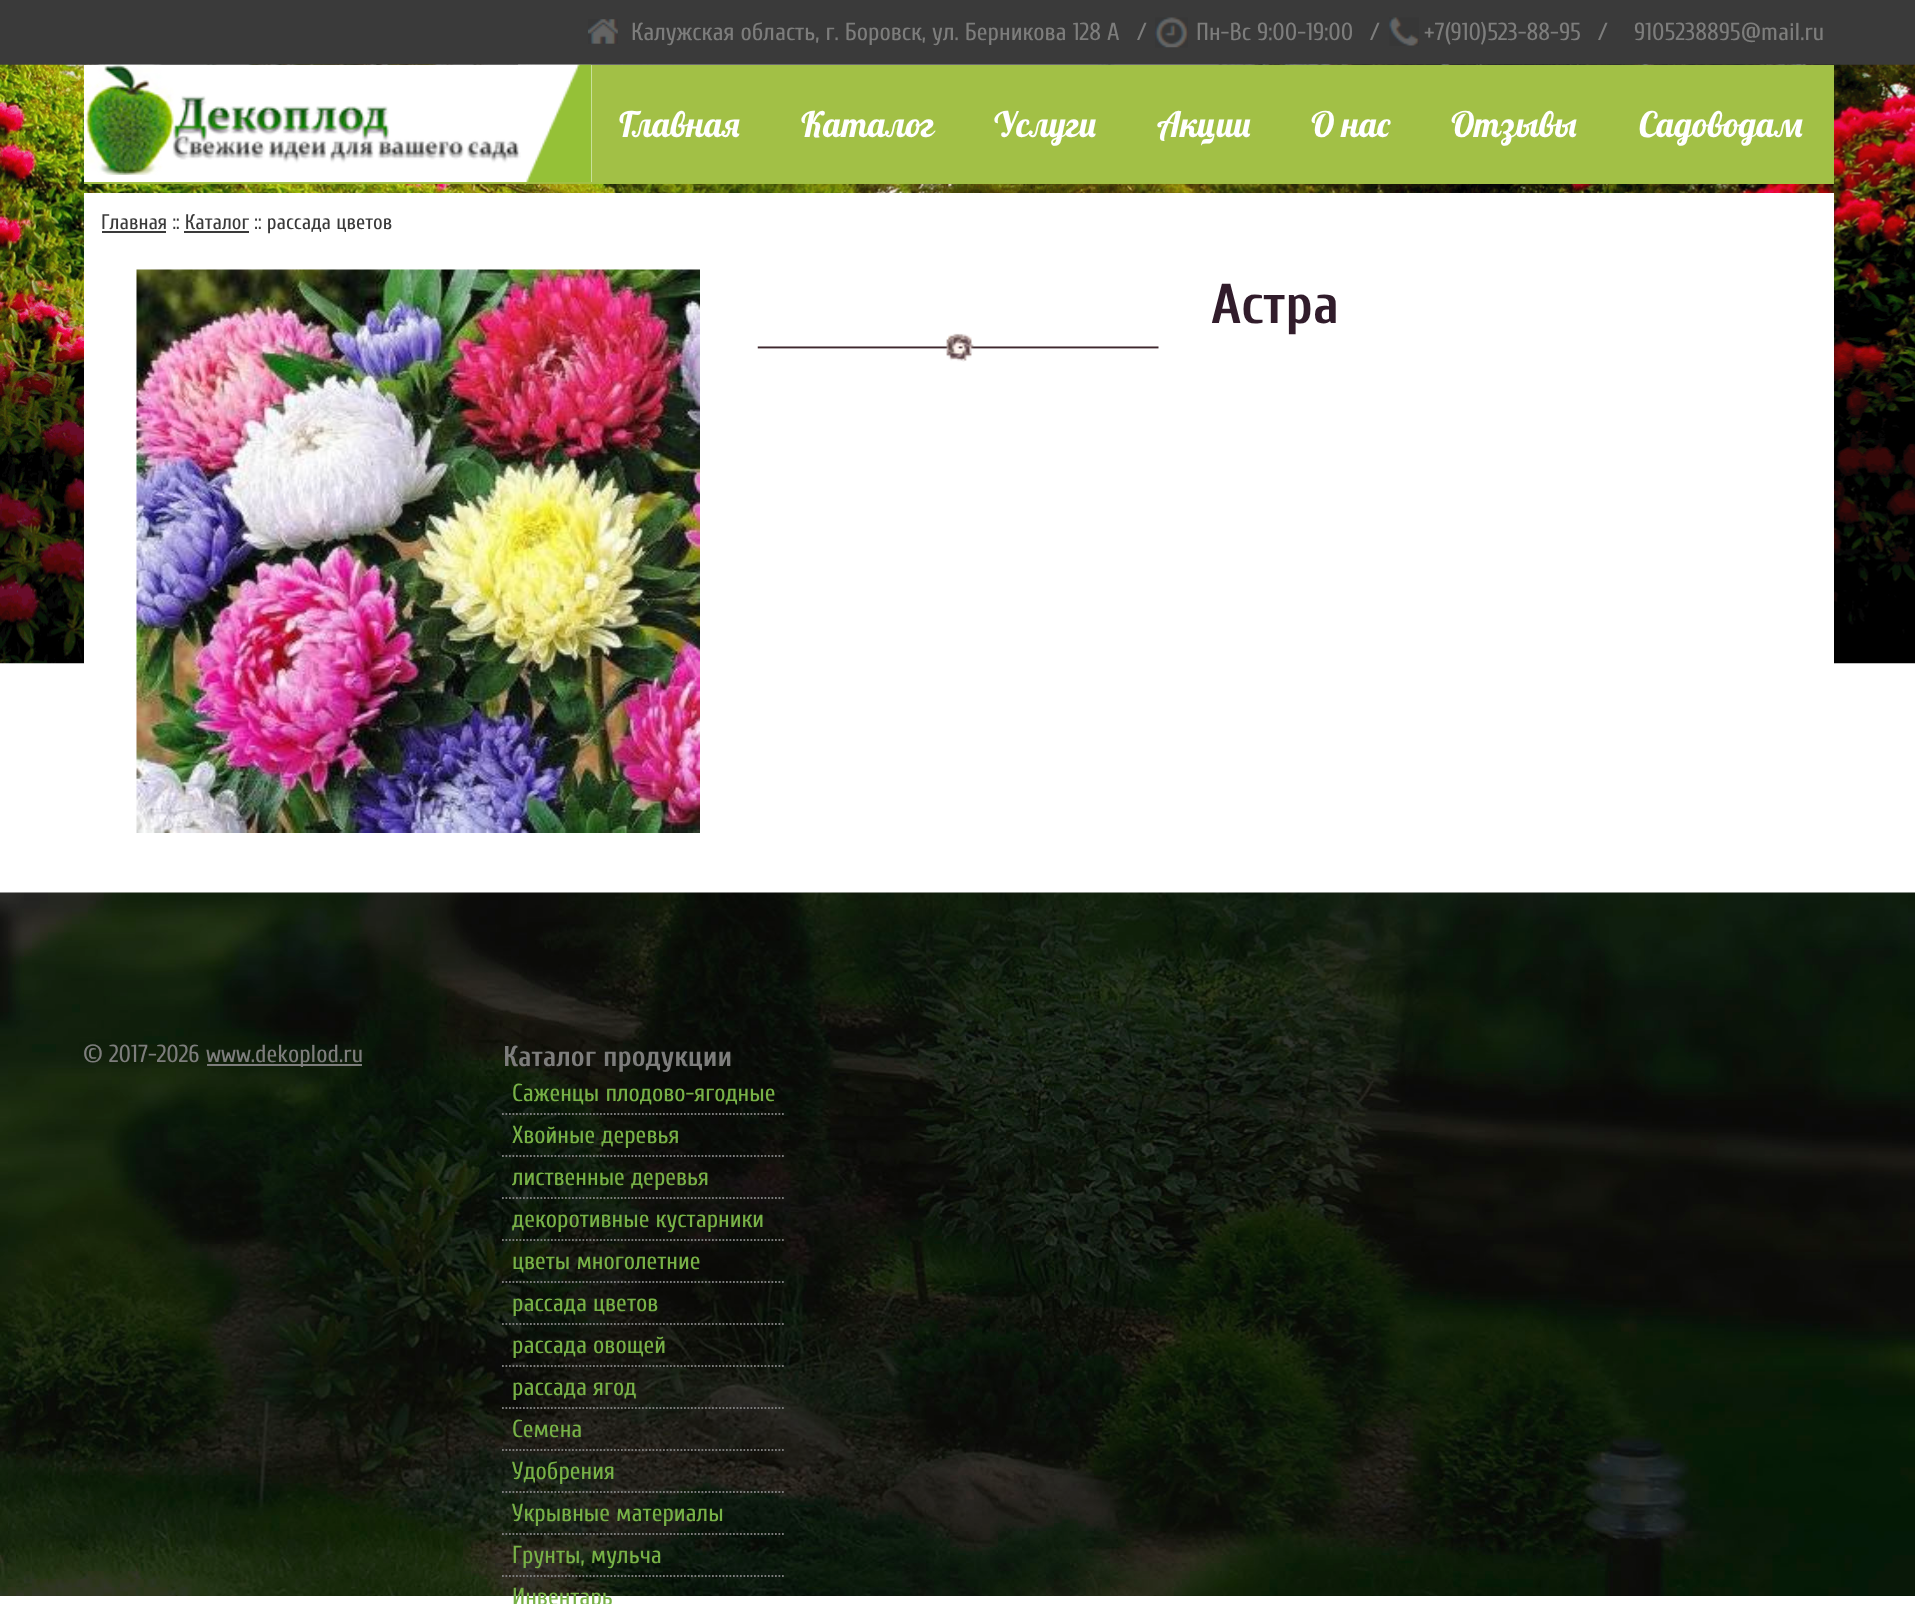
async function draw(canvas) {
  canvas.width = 1915;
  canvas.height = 1604;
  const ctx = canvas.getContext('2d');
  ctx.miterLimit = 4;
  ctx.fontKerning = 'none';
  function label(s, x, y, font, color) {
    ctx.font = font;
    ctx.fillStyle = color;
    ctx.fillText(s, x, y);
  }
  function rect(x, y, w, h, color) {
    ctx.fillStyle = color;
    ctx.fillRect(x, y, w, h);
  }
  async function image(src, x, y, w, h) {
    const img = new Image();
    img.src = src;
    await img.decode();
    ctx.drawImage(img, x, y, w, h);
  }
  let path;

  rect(0, 0, 1915, 1604, '#fff');
  rect(0, 0, 1915, 65, '#3a3a3a');
  await image('assets/img1.png', 588, 19, 30, 25);
  label('Калужская область, г. Боровск, ул. Берникова 128 А', 631, 40, '24.5px Cuprum', '#7d7d7c');
  label('/', 1137, 40, '24.5px Cuprum', '#7d7d7c');
  await image('assets/img2.png', 1155, 17, 33, 31);
  label('Пн-Вс 9:00-19:00', 1196, 40, '24.5px Cuprum', '#7d7d7c');
  label('/', 1370, 40, '24.5px Cuprum', '#7d7d7c');
  await image('assets/img3.png', 1389, 17, 30, 29);
  label('+7(910)523-88-95', 1424, 40, '24.5px Cuprum', '#7d7d7c');
  label('/', 1598, 40, '24.5px Cuprum', '#7d7d7c');
  label('9105238895@mail.ru', 1634, 40, '24.5px Cuprum', '#7d7d7c');
  await image('assets/img6.png', 0, 64, 1915, 600);
  rect(84, 65, 1750, 119, '#a2c046');
  rect(84, 65, 508, 117, '#fff');
  await image('assets/img4.png', 518, 64, 74, 118);
  await image('assets/img5.png', 84, 64, 437, 111);
  label('Главная', 619, 137, '35px Lobster', '#fff');
  label('Каталог', 801, 137, '35px Lobster', '#fff');
  label('Услуги', 994, 137, '35px Lobster', '#fff');
  label('Акции', 1157, 137, '35px Lobster', '#fff');
  label('О нас', 1311, 137, '35px Lobster', '#fff');
  label('Отзывы', 1451, 137, '35px Lobster', '#fff');
  label('Садоводам', 1639, 137, '35px Lobster', '#fff');
  rect(84, 193, 1750, 471, '#fff');
  rect(102, 231, 64, 2, '#3a3a3a');
  label('Главная :: Каталог :: рассада цветов', 101, 229, '21px Cuprum', '#3a3a3a');
  rect(184, 231, 65, 2, '#3a3a3a');
  await image('assets/img7.png', 136, 269, 564, 564);
  await image('assets/img8.png', 757, 333, 402, 29);
  label('Астра', 1211, 323, 'bold 56px Cuprum', '#311c2b');
  await image('assets/img9.png', 0, 892, 1915, 704);
  label('© 2017-2026', 83, 1062, '24.5px Cuprum', '#7d7d7c');
  rect(207, 1064, 155, 2, '#7d7d7c');
  label('www.dekoplod.ru', 206, 1062, '24.5px Cuprum', '#7d7d7c');
  label('Каталог продукции', 503, 1066, 'bold 28.75px Cuprum', '#7d7d7c');
  path = new Path2D('M502 1114H784');
  ctx.strokeStyle = '#7c7c7c';
  ctx.lineWidth = 1.8;
  ctx.setLineDash([1.75, 1.75]);
  ctx.stroke(path);
  label('Саженцы плодово-ягодные', 512, 1101, '24.5px Cuprum', '#77b146');
  path = new Path2D('M502 1156H784');
  ctx.stroke(path);
  label('Хвойные деревья', 512, 1143, '24.5px Cuprum', '#77b146');
  path = new Path2D('M502 1198H784');
  ctx.stroke(path);
  label('лиственные деревья', 512, 1185, '24.5px Cuprum', '#77b146');
  path = new Path2D('M502 1240H784');
  ctx.stroke(path);
  label('декоротивные кустарники', 512, 1227, '24.5px Cuprum', '#77b146');
  path = new Path2D('M502 1282H784');
  ctx.stroke(path);
  label('цветы многолетние', 512, 1269, '24.5px Cuprum', '#77b146');
  path = new Path2D('M502 1324H784');
  ctx.stroke(path);
  label('рассада цветов', 512, 1311, '24.5px Cuprum', '#77b146');
  path = new Path2D('M502 1366H784');
  ctx.stroke(path);
  label('рассада овощей', 512, 1353, '24.5px Cuprum', '#77b146');
  path = new Path2D('M502 1408H784');
  ctx.stroke(path);
  label('рассада ягод', 512, 1395, '24.5px Cuprum', '#77b146');
  path = new Path2D('M502 1450H784');
  ctx.stroke(path);
  label('Семена', 512, 1437, '24.5px Cuprum', '#77b146');
  path = new Path2D('M502 1492H784');
  ctx.stroke(path);
  label('Удобрения', 512, 1479, '24.5px Cuprum', '#77b146');
  path = new Path2D('M502 1534H784');
  ctx.stroke(path);
  label('Укрывные материалы', 512, 1521, '24.5px Cuprum', '#77b146');
  path = new Path2D('M502 1576H784');
  ctx.stroke(path);
  label('Грунты, мульча', 512, 1563, '24.5px Cuprum', '#77b146');
  label('Инвентарь', 512, 1605, '24.5px Cuprum', '#77b146');
}

draw(document.querySelector('canvas'));
